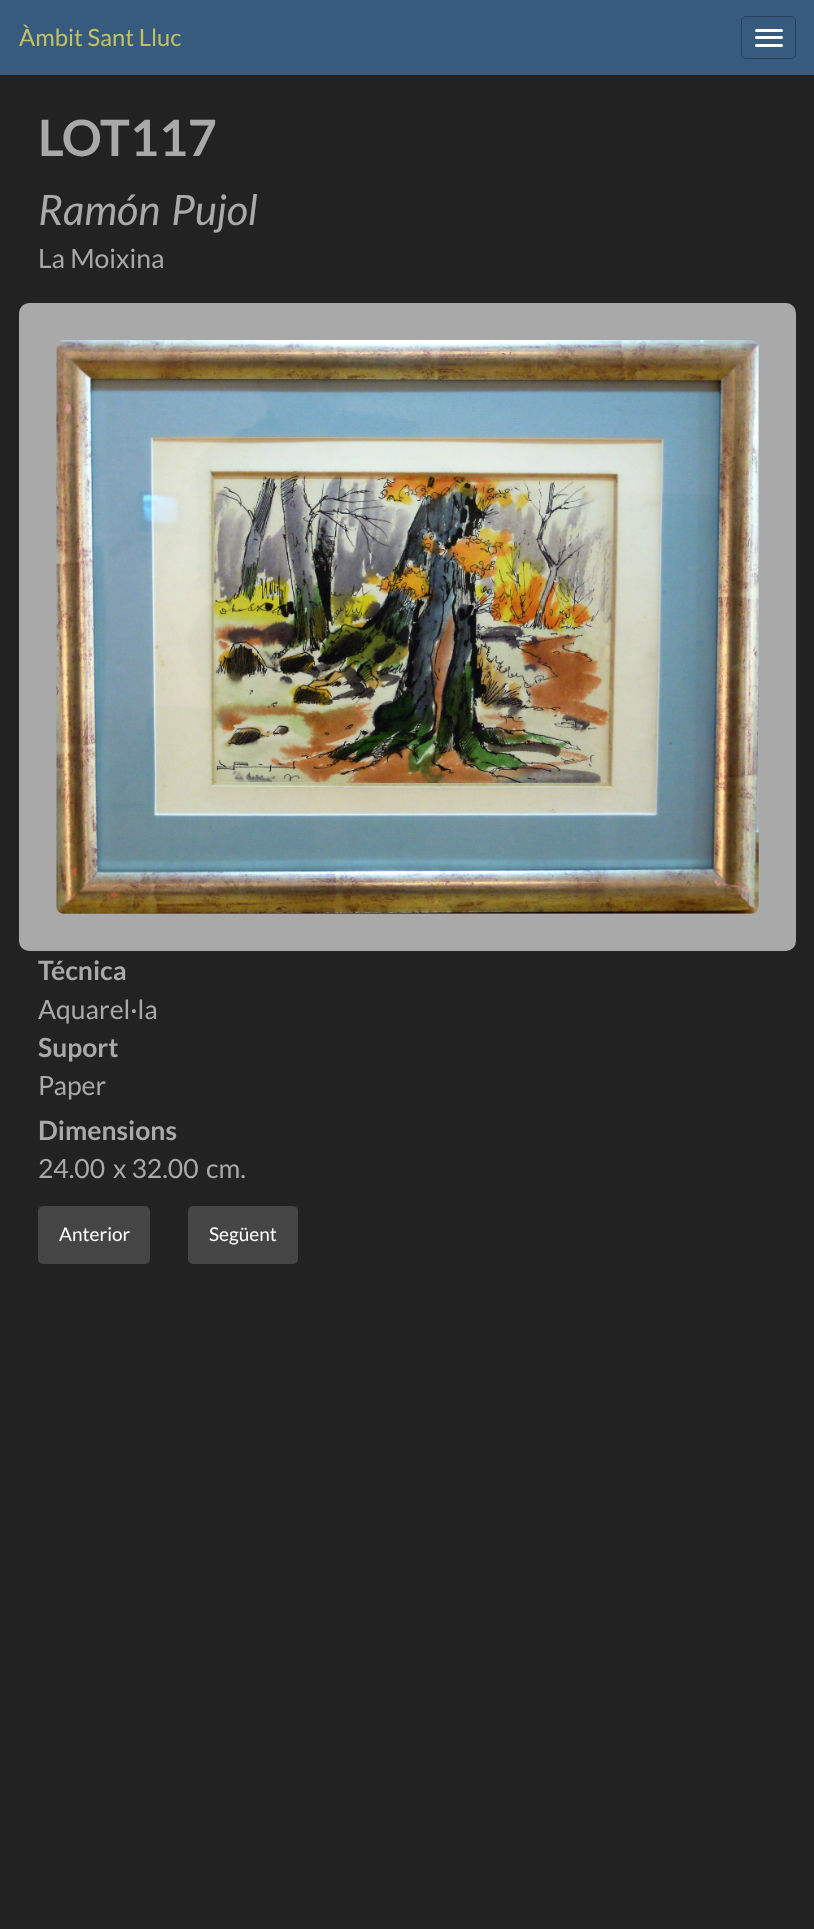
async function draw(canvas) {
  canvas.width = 814;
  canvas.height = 1929;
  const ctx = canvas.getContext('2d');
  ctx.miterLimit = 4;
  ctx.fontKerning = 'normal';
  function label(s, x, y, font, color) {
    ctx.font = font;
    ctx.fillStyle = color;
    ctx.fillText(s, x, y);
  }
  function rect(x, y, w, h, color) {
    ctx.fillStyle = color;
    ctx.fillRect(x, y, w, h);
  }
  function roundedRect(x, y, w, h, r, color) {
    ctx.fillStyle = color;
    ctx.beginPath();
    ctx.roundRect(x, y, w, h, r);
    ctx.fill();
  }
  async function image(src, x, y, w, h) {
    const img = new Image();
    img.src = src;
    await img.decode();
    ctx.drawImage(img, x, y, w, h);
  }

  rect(0, 0, 814, 1929, '#222');
  rect(0, 0, 814, 75, '#375a7f');
  label('Àmbit Sant Lluc', 19, 46, '23.75px Lato', '#c1c362');
  ctx.beginPath();
  ctx.roundRect(741.5, 16.5, 54, 42, 4.5);
  ctx.strokeStyle = '#28415b';
  ctx.stroke();
  roundedRect(755, 29, 28, 3, 1.5, '#fff');
  roundedRect(755, 36, 28, 3, 1.5, '#fff');
  roundedRect(755, 44, 28, 3, 1.5, '#fff');
  label('LOT117', 38, 156, 'bold 50px Lato', '#a9a9a9');
  label('Ramón', 38, 225, 'italic 42px Lato', '#a9a9a9');
  label('Pujol', 171, 225, 'italic 42px Lato', '#a9a9a9');
  label('La Moixina', 38, 268, '26.5px Lato', '#a9a9a9');
  roundedRect(19, 303, 777, 648, 10, '#a9a9a9');
  await image('assets/img1.png', 56, 340, 703, 574);
  label('Técnica', 38, 980, 'bold 26.5px Lato', '#a9a9a9');
  label('Aquarel·la', 38, 1019, '26.5px Lato', '#a9a9a9');
  label('Suport', 38, 1057, 'bold 26.5px Lato', '#a9a9a9');
  label('Paper', 38, 1095, '26.5px Lato', '#a9a9a9');
  label('Dimensions', 38, 1140, 'bold 26.5px Lato', '#a9a9a9');
  label('24.00', 38, 1178, '26.5px Lato', '#a9a9a9');
  label('x 32.00', 113, 1178, '26.5px Lato', '#a9a9a9');
  label('cm.', 206, 1178, '26.5px Lato', '#a9a9a9');
  ctx.fillStyle = '#464545';
  ctx.beginPath();
  ctx.roundRect(39.5, 1207.5, 109, 55, 3.5);
  ctx.fill();
  ctx.strokeStyle = '#464545';
  ctx.lineWidth = 3;
  ctx.stroke();
  label('Anterior', 59, 1241, '19px Lato', '#fff');
  ctx.fillStyle = '#464545';
  ctx.beginPath();
  ctx.roundRect(189.5, 1207.5, 107, 55, 3.5);
  ctx.fill();
  ctx.stroke();
  label('Següent', 209, 1241, '19px Lato', '#fff');
}

draw(document.querySelector('canvas'));
